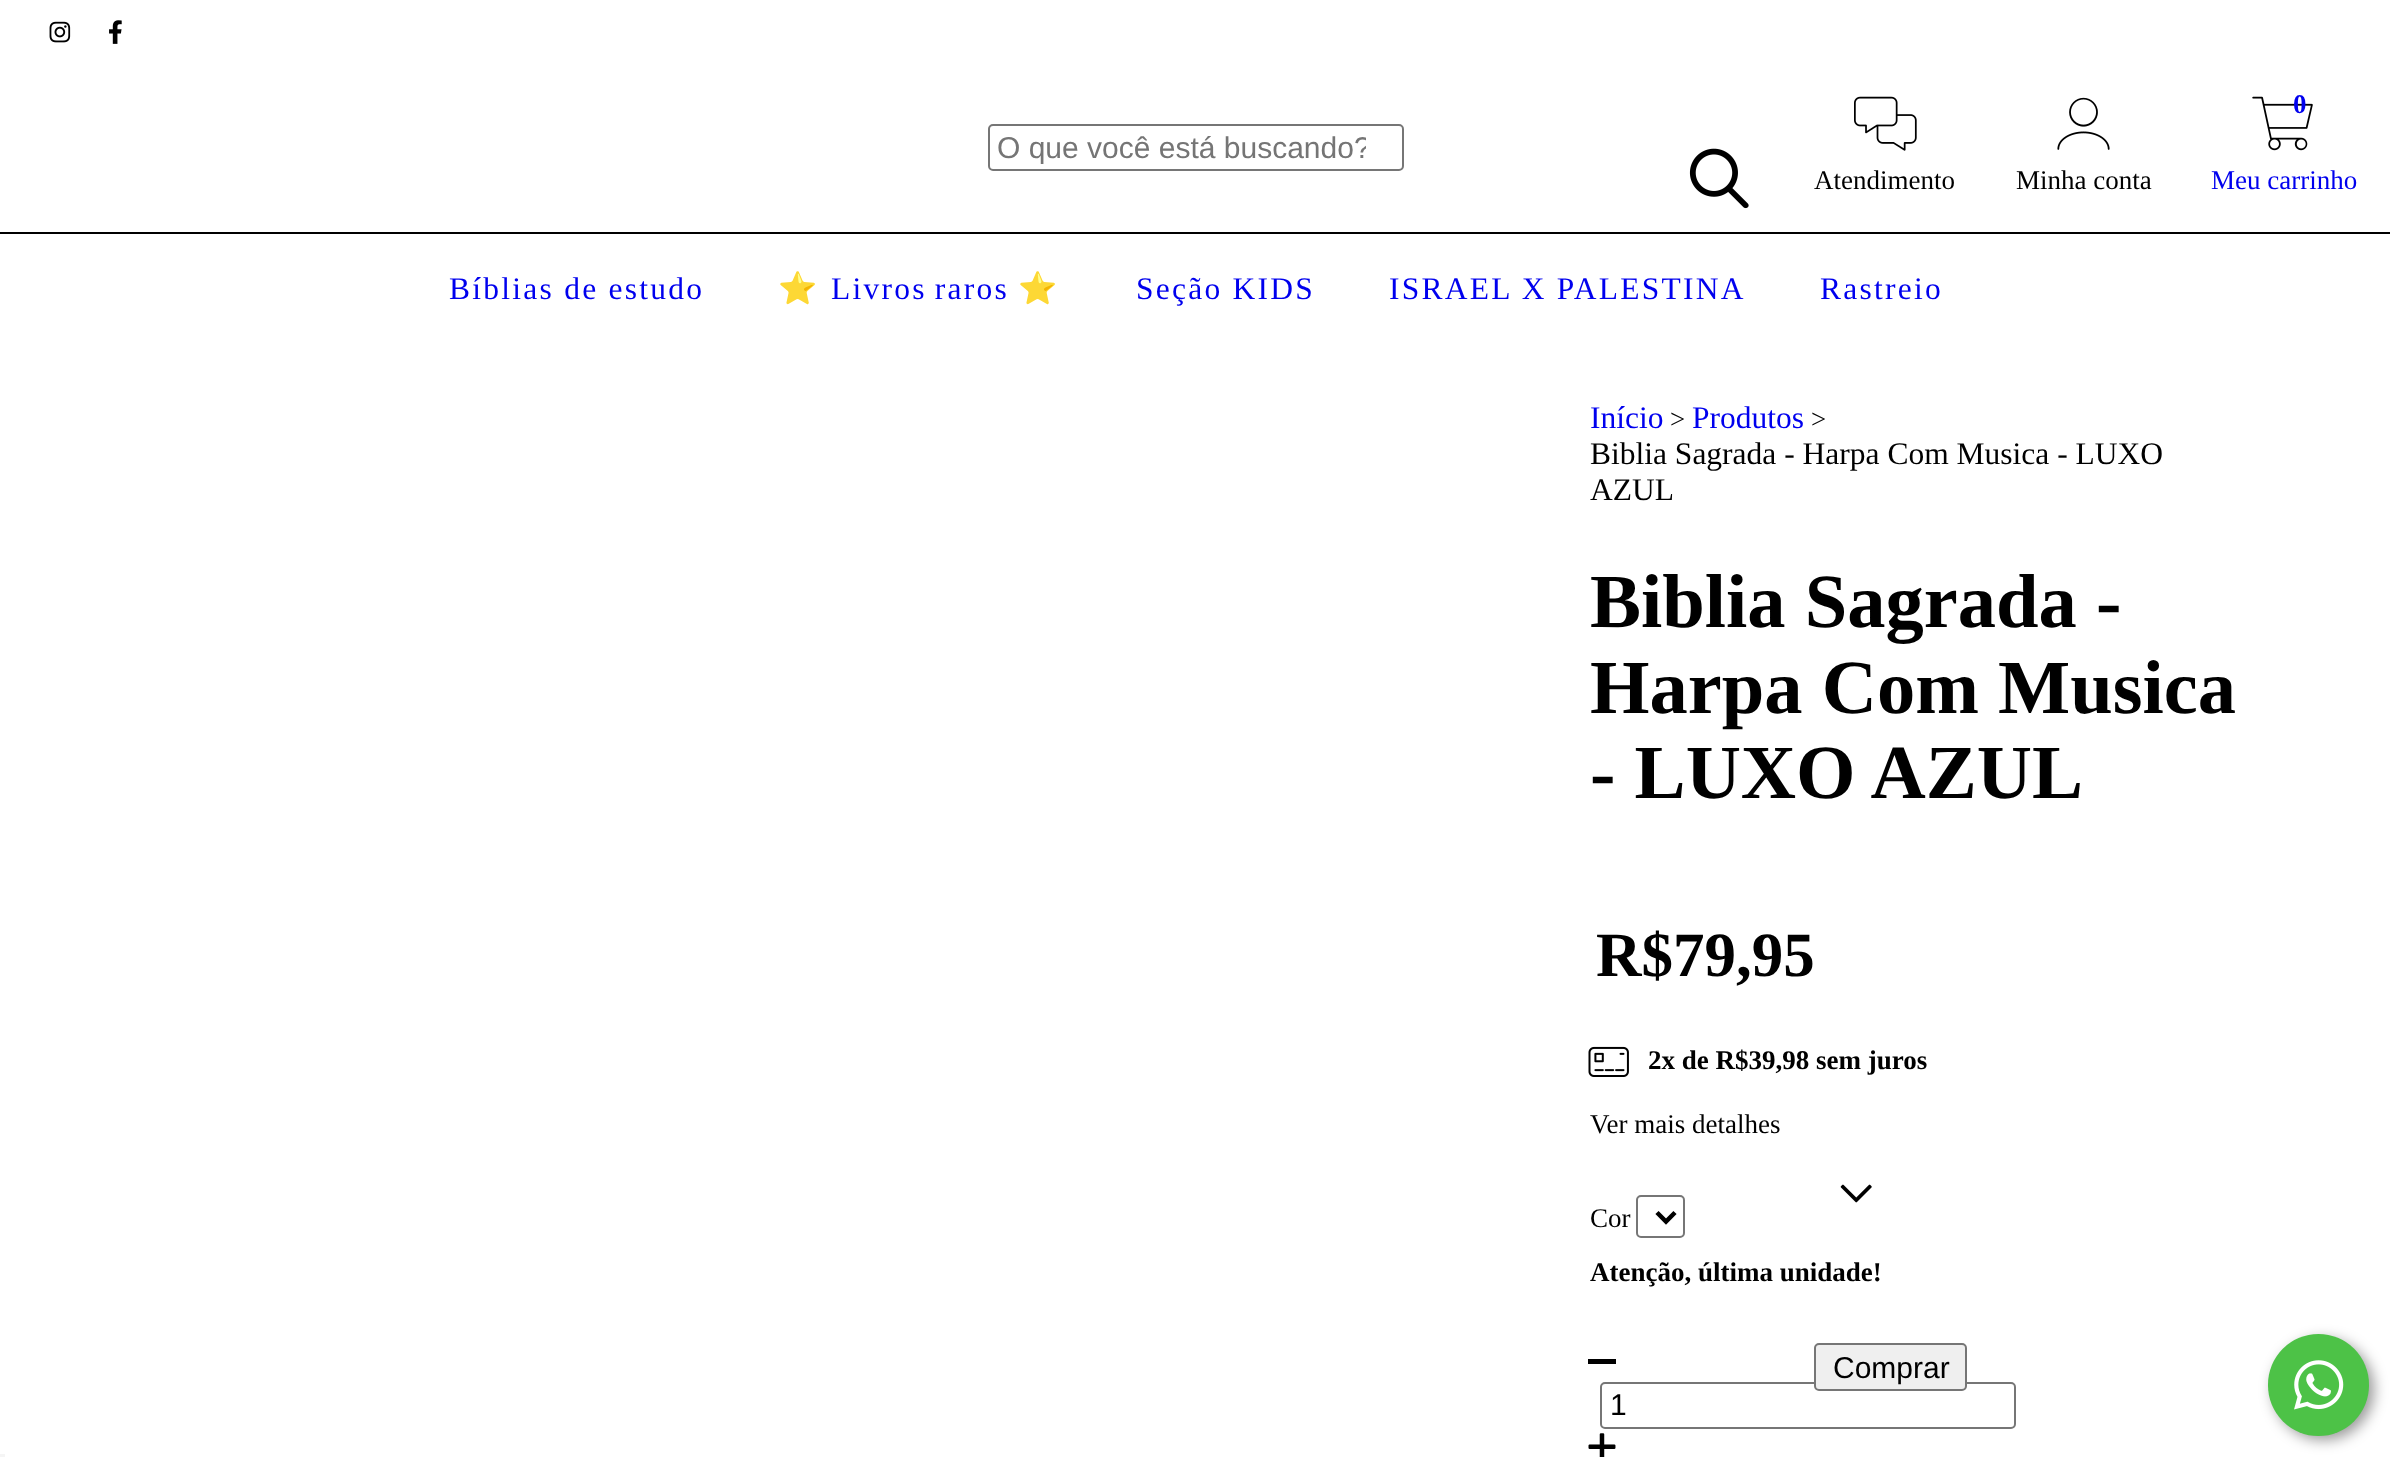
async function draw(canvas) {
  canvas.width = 2390;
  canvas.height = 1457;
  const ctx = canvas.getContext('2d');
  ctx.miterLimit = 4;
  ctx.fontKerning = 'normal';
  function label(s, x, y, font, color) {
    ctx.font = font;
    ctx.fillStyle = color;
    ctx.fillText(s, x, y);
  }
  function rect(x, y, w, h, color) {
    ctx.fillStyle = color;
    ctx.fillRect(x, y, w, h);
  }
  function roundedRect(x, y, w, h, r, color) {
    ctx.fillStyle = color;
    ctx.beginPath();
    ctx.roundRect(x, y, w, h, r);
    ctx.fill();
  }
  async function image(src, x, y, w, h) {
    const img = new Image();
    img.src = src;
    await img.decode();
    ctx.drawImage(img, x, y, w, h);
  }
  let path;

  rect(0, 0, 2390, 1457, '#fff');
  await image('assets/img1.png', 49, 21, 22, 22);
  await image('assets/img2.png', 109, 20, 13, 24);
  ctx.beginPath();
  ctx.roundRect(989, 125, 414, 45, 4);
  ctx.strokeStyle = '#767676';
  ctx.lineWidth = 2;
  ctx.stroke();
  ctx.save();
  ctx.beginPath();
  ctx.rect(997, 131, 369, 33);
  ctx.clip();
  label('O que você está buscando?', 997, 158, '30px Liberation Sans', '#757575');
  ctx.restore();
  await image('assets/img3.png', 1689, 148, 60, 61);
  await image('assets/img4.png', 1854, 96, 63, 55);
  label('Atendimento', 1814, 189, '27px Liberation Serif', '#000');
  await image('assets/img5.png', 2057, 97, 53, 53);
  label('Minha conta', 2016, 189, '27px Liberation Serif', '#000');
  await image('assets/img6.png', 2252, 96, 61, 55);
  label('0', 2293, 113, 'bold 27px Liberation Serif', '#00e');
  label('Meu carrinho', 2211, 189, '27px Liberation Serif', '#00e');
  rect(0, 232, 2390, 2, '#000');
  ctx.letterSpacing = '2.25px';
  label('Bíblias de estudo', 449, 299, '31.5px Liberation Serif', '#00e');
  label('⭐️', 778, 299, '31.5px Noto Color Emoji', '#00e');
  ctx.wordSpacing = '-2px';
  label('Livros raros', 831, 299, '31.5px Liberation Serif', '#00e');
  ctx.wordSpacing = '0px';
  label('⭐️', 1018, 299, '31.5px Noto Color Emoji', '#00e');
  label('Seção KIDS', 1136, 299, '31.5px Liberation Serif', '#00e');
  label('ISRAEL X PALESTINA', 1389, 299, '31.5px Liberation Serif', '#00e');
  label('Rastreio', 1820, 299, '31.5px Liberation Serif', '#00e');
  rect(0, 1454, 5, 3, '#f5f5f5');
  ctx.letterSpacing = '0px';
  label('Início', 1590, 428, '31.5px Liberation Serif', '#00e');
  label('>', 1670, 428, '27px Liberation Serif', '#000');
  label('Produtos', 1692, 428, '31.5px Liberation Serif', '#00e');
  label('>', 1811, 428, '27px Liberation Serif', '#000');
  label('Biblia Sagrada - Harpa Com Musica - LUXO', 1590, 464, '31.5px Liberation Serif', '#000');
  label('AZUL', 1590, 500, '31.5px Liberation Serif', '#000');
  label('Biblia Sagrada -', 1590, 627, 'bold 76.5px Liberation Serif', '#000');
  label('Harpa Com Musica', 1590, 713, 'bold 76.5px Liberation Serif', '#000');
  label('- LUXO AZUL', 1590, 798, 'bold 76.5px Liberation Serif', '#000');
  label('R$79,95', 1596, 976, 'bold 63px Liberation Serif', '#000');
  await image('assets/img7.png', 1588, 1046, 41, 31);
  label('2x de R$39,98 sem juros', 1648, 1069, 'bold 27px Liberation Serif', '#000');
  label('Ver mais detalhes', 1590, 1133, '27px Liberation Serif', '#000');
  label('Cor', 1590, 1227, '27px Liberation Serif', '#000');
  ctx.beginPath();
  ctx.roundRect(1637, 1196, 47, 41, 4);
  ctx.stroke();
  path = new Path2D('M1657 1212.5L1666 1221.5L1675 1212.5');
  ctx.strokeStyle = '#000';
  ctx.lineWidth = 4.5;
  ctx.stroke(path);
  await image('assets/img8.png', 1840, 1184, 32, 19);
  label('Atenção, última unidade!', 1590, 1281, 'bold 27px Liberation Serif', '#000');
  ctx.beginPath();
  ctx.roundRect(1601, 1383, 414, 45, 4);
  ctx.strokeStyle = '#767676';
  ctx.lineWidth = 2;
  ctx.stroke();
  ctx.fillStyle = '#efefef';
  ctx.beginPath();
  ctx.roundRect(1815, 1344, 151, 46, 4);
  ctx.fill();
  ctx.stroke();
  label('Comprar', 1833, 1378, '30px Liberation Sans', '#000');
  rect(1588, 1359, 28, 5, '#000');
  label('1', 1610, 1415, '30px Liberation Sans', '#000');
  await image('assets/img9.png', 1588, 1433, 28, 24);
  ctx.fillStyle = '#00000066';
  ctx.filter = 'blur(7px)';
  ctx.beginPath();
  ctx.roundRect(2273, 1339, 101, 101, 50.5);
  ctx.fill();
  ctx.filter = 'none';
  roundedRect(2268, 1334, 101, 102, 50.5, '#4dc247');
  await image('assets/img10.png', 2294, 1360, 50, 50);
}

draw(document.querySelector('canvas'));
